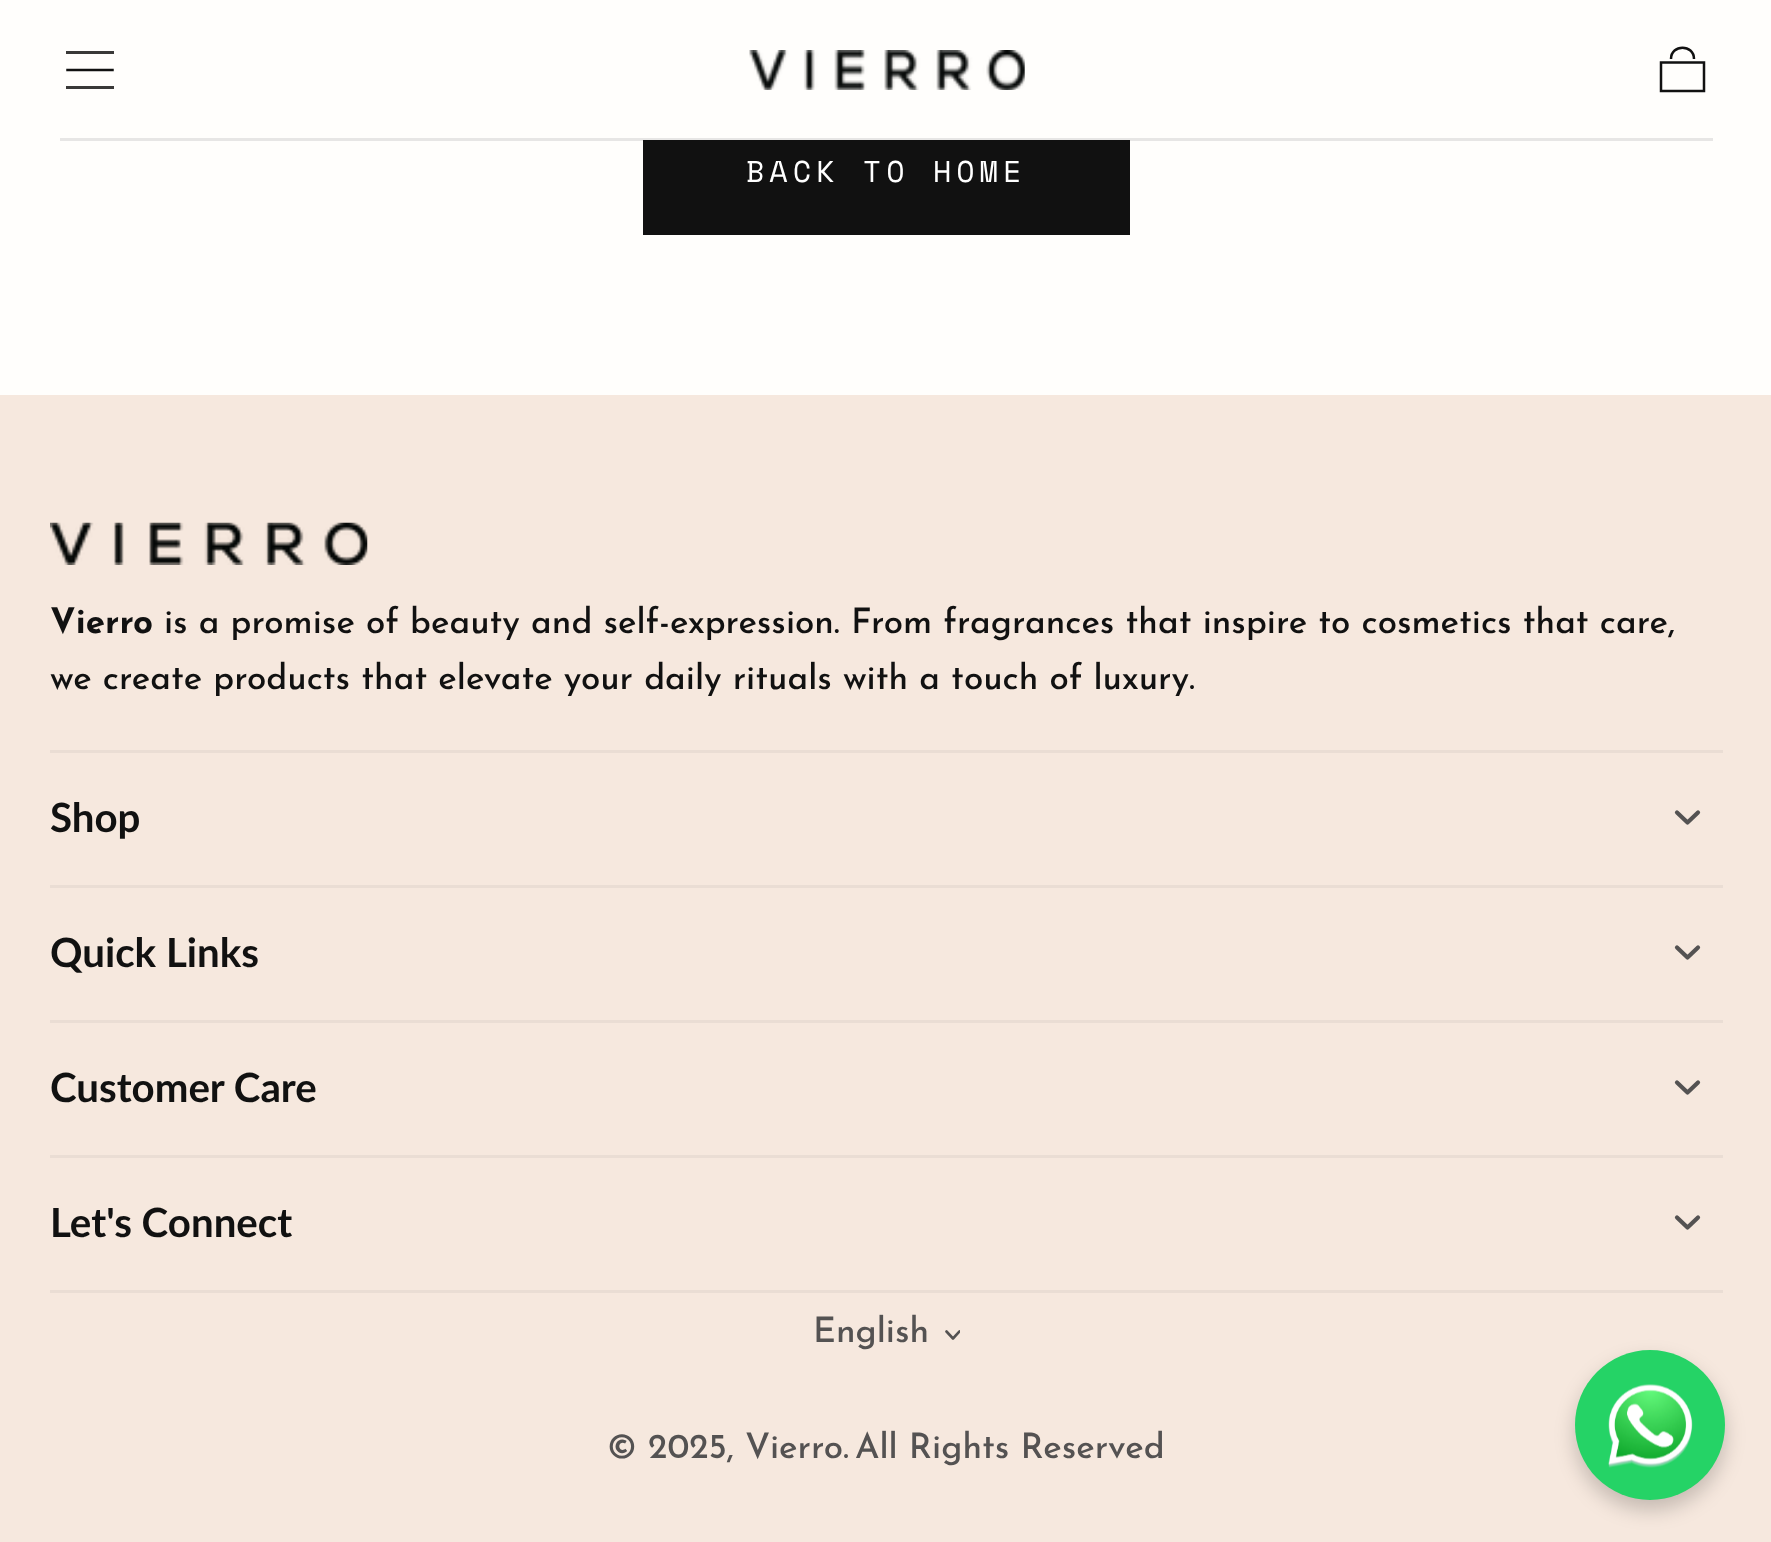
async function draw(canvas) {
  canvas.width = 1771;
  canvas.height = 1542;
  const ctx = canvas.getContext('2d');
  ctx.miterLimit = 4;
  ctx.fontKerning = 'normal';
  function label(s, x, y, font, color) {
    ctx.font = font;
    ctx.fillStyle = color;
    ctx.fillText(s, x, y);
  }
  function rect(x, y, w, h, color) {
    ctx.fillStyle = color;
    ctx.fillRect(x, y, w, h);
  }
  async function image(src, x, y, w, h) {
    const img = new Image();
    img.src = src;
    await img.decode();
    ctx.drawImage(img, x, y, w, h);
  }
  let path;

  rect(0, 0, 1771, 1542, '#fffefc');
  rect(60, 138, 1653, 3, '#e7e6e5');
  rect(66, 51, 48, 3, '#393938');
  path = new Path2D('M67.5 70H112.5');
  ctx.strokeStyle = '#111';
  ctx.lineWidth = 2.5;
  ctx.lineCap = 'square';
  ctx.stroke(path);
  rect(66, 86, 48, 3, '#393938');
  await image('assets/img1.png', 749, 50, 276, 40);
  path = new Path2D('M1704 91H1661V62.5H1704ZM1694 59C1694 44 1671 44 1671 59');
  ctx.lineCap = 'butt';
  ctx.stroke(path);
  rect(643, 140, 487, 95, '#111');
  ctx.letterSpacing = '5px';
  label('BACK TO HOME', 746, 182, '30px Space Mono', '#fff');
  rect(0, 395, 1771, 1147, '#f6e8de');
  rect(50, 750, 1673, 3, '#eaddd4');
  await image('assets/img2.png', 50, 522, 318, 43);
  ctx.letterSpacing = '0px';
  label('Vierro', 50, 633, 'bold 35px Josefin Sans', '#111');
  label('is a promise of beauty and self-expression. From fragrances that inspire to cosmetics that care,', 164, 633, '500 35px Josefin Sans', '#111');
  label('we create products that elevate your daily rituals with a touch of luxury.', 50, 689, '500 35px Josefin Sans', '#111');
  rect(50, 885, 1673, 3, '#eaddd4');
  label('Shop', 50, 832, 'bold 40.25px Lato', '#111');
  path = new Path2D('M1677 812.5L1687.5 822.5L1698 812.5');
  ctx.strokeStyle = '#545252';
  ctx.lineWidth = 4.2;
  ctx.lineCap = 'round';
  ctx.lineJoin = 'round';
  ctx.stroke(path);
  rect(50, 1020, 1673, 3, '#eaddd4');
  label('Quick Links', 50, 967, 'bold 40.25px Lato', '#111');
  path = new Path2D('M1677 947.5L1687.5 957.5L1698 947.5');
  ctx.stroke(path);
  rect(50, 1155, 1673, 3, '#eaddd4');
  label('Customer Care', 50, 1102, 'bold 40.25px Lato', '#111');
  path = new Path2D('M1677 1082.5L1687.5 1092.5L1698 1082.5');
  ctx.stroke(path);
  rect(50, 1290, 1673, 3, '#eaddd4');
  label('Let\'s Connect', 50, 1237, 'bold 40.25px Lato', '#111');
  path = new Path2D('M1677 1217.5L1687.5 1227.5L1698 1217.5');
  ctx.stroke(path);
  label('English', 813, 1342, '500 35px Josefin Sans', '#545252');
  ctx.save();
  ctx.beginPath();
  ctx.rect(945, 1328, 15, 15);
  ctx.clip();
  path = new Path2D('M946.5 1331.5L953 1338.5L959.5 1331.5');
  ctx.lineWidth = 2.6;
  ctx.stroke(path);
  ctx.restore();
  label('© 2025, Vierro.', 607, 1458, '500 35px Josefin Sans', '#545252');
  label('All Rights Reserved', 855, 1458, '500 35px Josefin Sans', '#545252');
  ctx.fillStyle = '#00000033';
  ctx.filter = 'blur(10px)';
  ctx.beginPath();
  ctx.roundRect(1575, 1360, 150, 150, 75);
  ctx.fill();
  ctx.filter = 'none';
  ctx.fillStyle = '#25d366';
  ctx.beginPath();
  ctx.arc(1650, 1425, 75, 0, 2 * Math.PI);
  ctx.fill();
  await image('assets/img3.png', 1608, 1384, 85, 84);
}

draw(document.querySelector('canvas'));
